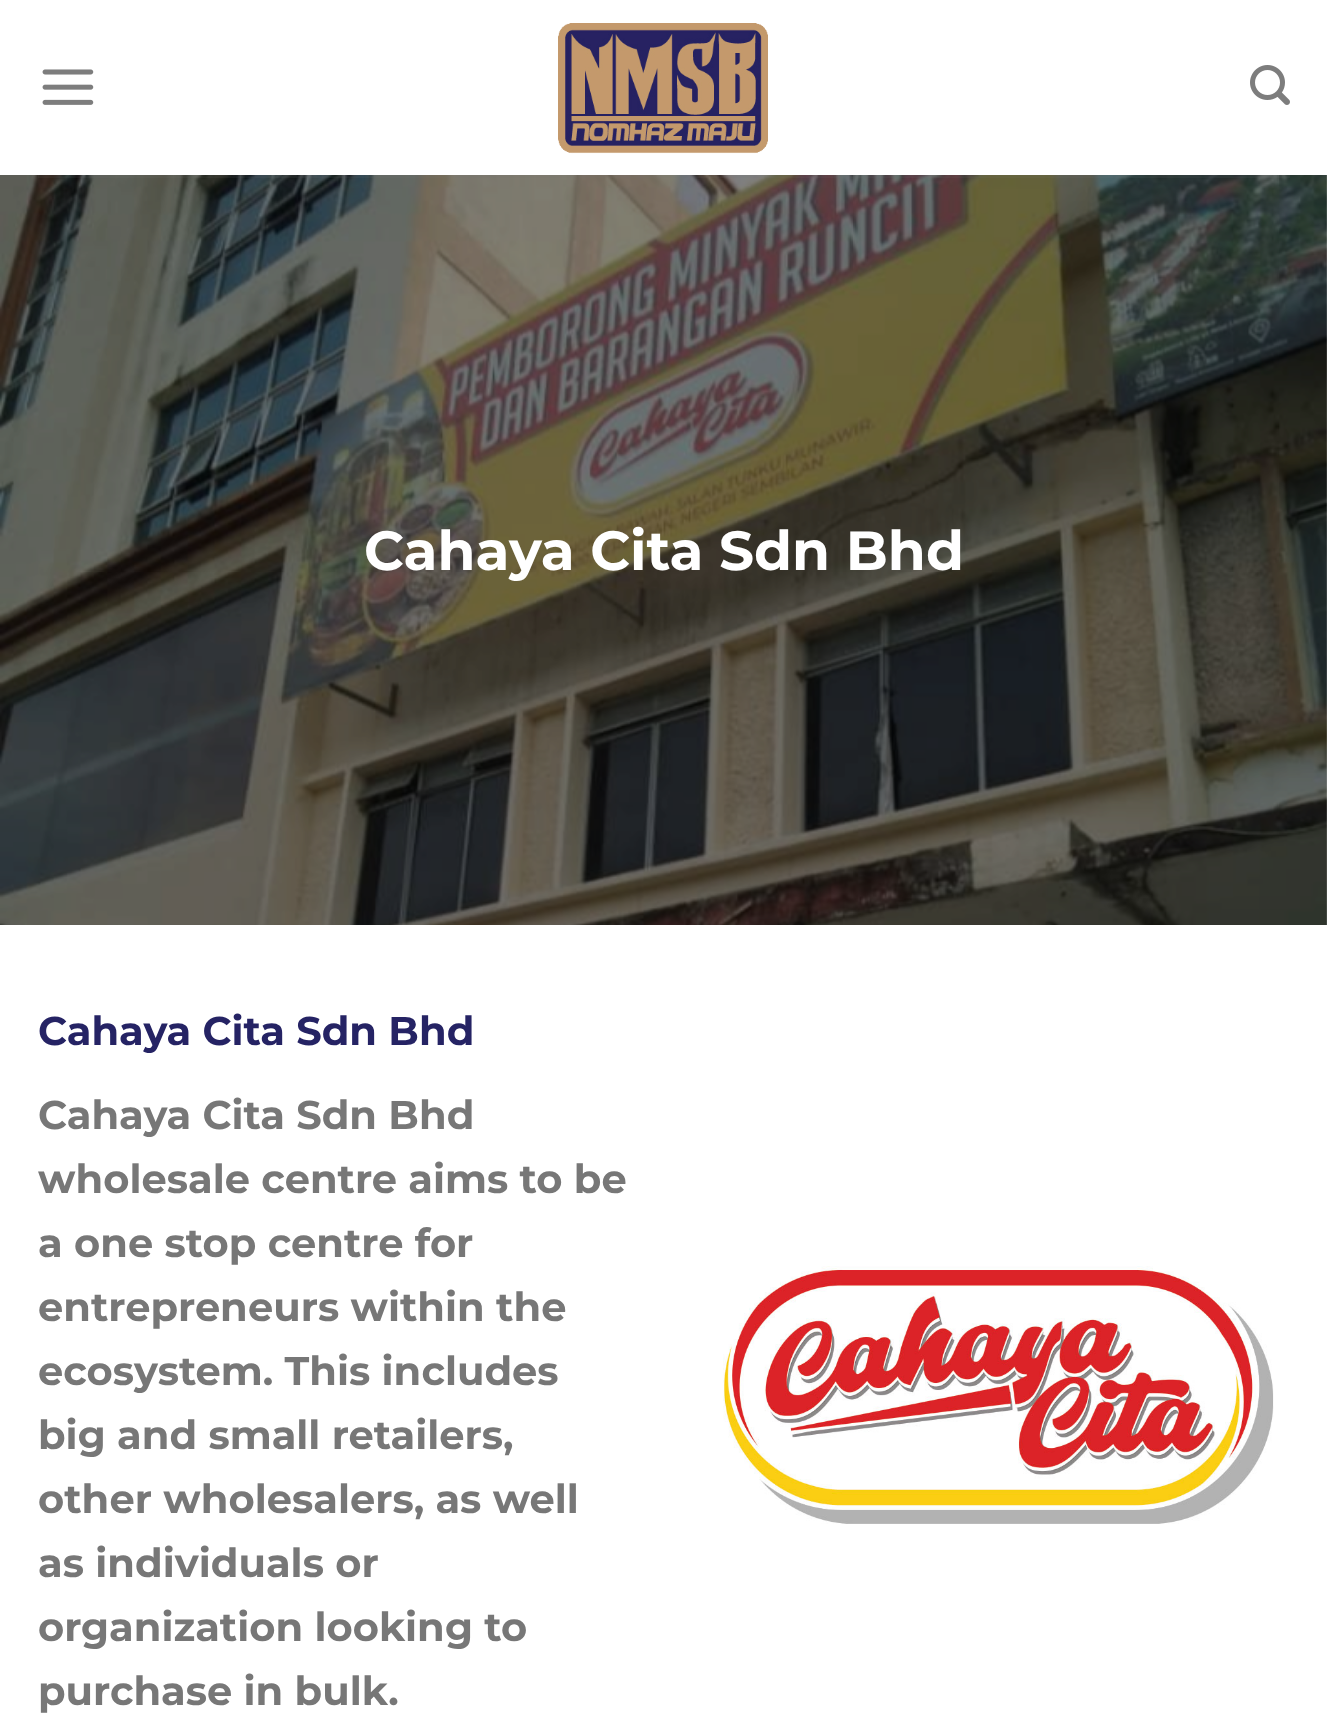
async function draw(canvas) {
  canvas.width = 1327;
  canvas.height = 1713;
  const ctx = canvas.getContext('2d');
  ctx.miterLimit = 4;
  ctx.fontKerning = 'normal';
  function label(s, x, y, font, color) {
    ctx.font = font;
    ctx.fillStyle = color;
    ctx.fillText(s, x, y);
  }
  function rect(x, y, w, h, color) {
    ctx.fillStyle = color;
    ctx.fillRect(x, y, w, h);
  }
  async function image(src, x, y, w, h) {
    const img = new Image();
    img.src = src;
    await img.decode();
    ctx.drawImage(img, x, y, w, h);
  }

  rect(0, 0, 1327, 1713, '#fff');
  await image('assets/img1.png', 42, 69, 52, 36);
  await image('assets/img2.png', 558, 23, 210, 131);
  await image('assets/img3.png', 1250, 65, 40, 40);
  await image('assets/img4.png', 0, 175, 1327, 750);
  rect(38, 175, 1252, 3, '#7777771a');
  label('Cahaya Cita Sdn Bhd', 364, 570, 'bold 55px Montserrat', '#fff');
  label('Cahaya Cita Sdn Bhd', 38, 1045, 'bold 40px Montserrat', '#252364');
  label('Cahaya Cita Sdn Bhd', 38, 1129, 'bold 40px Montserrat', '#777');
  label('wholesale centre aims to be', 38, 1193, 'bold 40px Montserrat', '#777');
  label('a one stop centre for', 38, 1257, 'bold 40px Montserrat', '#777');
  label('entrepreneurs within the', 38, 1321, 'bold 40px Montserrat', '#777');
  label('ecosystem. This includes', 38, 1385, 'bold 40px Montserrat', '#777');
  label('big and small retailers,', 38, 1449, 'bold 40px Montserrat', '#777');
  label('other wholesalers, as well', 38, 1513, 'bold 40px Montserrat', '#777');
  label('as individuals or', 38, 1577, 'bold 40px Montserrat', '#777');
  label('organization looking to', 38, 1641, 'bold 40px Montserrat', '#777');
  label('purchase in bulk.', 38, 1705, 'bold 40px Montserrat', '#777');
  await image('assets/img5.png', 723, 1266, 551, 258);
}

draw(document.querySelector('canvas'));
